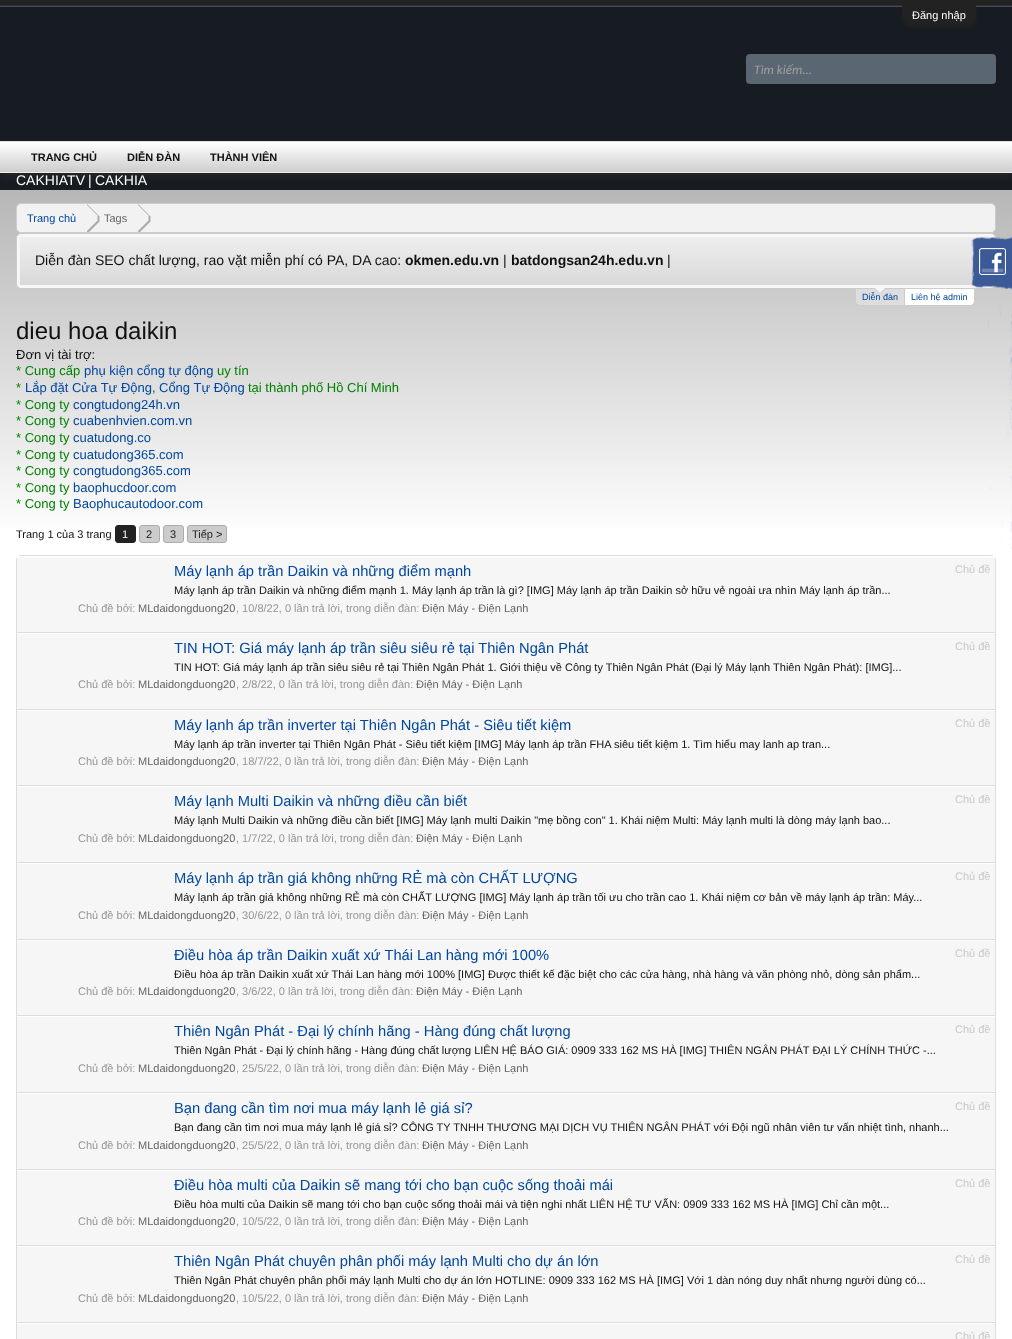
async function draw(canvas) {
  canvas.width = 1012;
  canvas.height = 1339;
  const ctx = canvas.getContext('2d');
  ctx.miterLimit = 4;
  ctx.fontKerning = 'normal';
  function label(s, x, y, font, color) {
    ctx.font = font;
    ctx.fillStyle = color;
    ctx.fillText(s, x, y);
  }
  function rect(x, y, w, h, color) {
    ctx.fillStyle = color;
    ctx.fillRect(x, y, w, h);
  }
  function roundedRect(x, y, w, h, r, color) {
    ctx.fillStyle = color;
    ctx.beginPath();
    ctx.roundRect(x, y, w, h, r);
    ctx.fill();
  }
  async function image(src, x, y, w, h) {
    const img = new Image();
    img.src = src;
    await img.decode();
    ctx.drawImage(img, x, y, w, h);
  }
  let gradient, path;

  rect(0, 0, 1012, 1339, '#fff');
  rect(0, 0, 1012, 5, '#222');
  rect(0, 5, 1012, 1, '#333');
  rect(0, 7, 1012, 183, '#171c22');
  rect(0, 6, 1012, 1, '#444b53');
  ctx.fillStyle = '#222';
  ctx.filter = 'blur(2.5px)';
  ctx.beginPath();
  ctx.roundRect(902, 7, 74, 20, 10);
  ctx.fill();
  ctx.filter = 'none';
  ctx.beginPath();
  ctx.roundRect(902, 5, 74, 20, [0, 0, 10, 10]);
  ctx.fill();
  label('Đăng nhập', 912, 19, '11px Liberation Sans', '#fff');
  roundedRect(746, 54, 250, 30, 4, '#5b6673');
  label('Tìm kiếm...', 754, 74, 'italic 13px Carlito', '#a0a0a0');
  ctx.fillStyle = '#32323273';
  ctx.filter = 'blur(4px)';
  ctx.beginPath();
  ctx.rect(0, 145, 1012, 32);
  ctx.fill();
  ctx.filter = 'none';
  gradient = ctx.createLinearGradient(506, 142, 506, 172);
  gradient.addColorStop(0.02, '#fff');
  gradient.addColorStop(1, '#cdcdcd');
  ctx.fillStyle = gradient;
  ctx.fillRect(0, 142, 1012, 30);
  rect(0, 141, 1012, 1, '#e1e1e1');
  rect(0, 172, 1012, 1, '#eee');
  label('TRANG CHỦ', 31, 161, 'bold 11px Liberation Sans', '#111');
  label('DIỄN ĐÀN', 127, 161, 'bold 11px Liberation Sans', '#111');
  label('THÀNH VIÊN', 210, 161, 'bold 11px Liberation Sans', '#111');
  label('CAKHIATV', 16, 185, '14px Liberation Sans', '#fff');
  label('|', 88, 185, '14px Liberation Sans', '#fff');
  label('CAKHIA', 95, 185, '14px Liberation Sans', '#fff');
  gradient = ctx.createLinearGradient(900, 171, 900, 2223);
  gradient.addColorStop(0, '#b3b3b3');
  gradient.addColorStop(0.18, '#fff');
  gradient.addColorStop(1, '#fff');
  ctx.fillStyle = gradient;
  ctx.fillRect(0, 190, 1012, 338);
  ctx.fillStyle = '#f2f2f2';
  ctx.beginPath();
  ctx.roundRect(16.5, 203.5, 979, 29, 4.5);
  ctx.fill();
  ctx.strokeStyle = '#ccc';
  ctx.stroke();
  label('Trang chủ', 27, 222, '11px Liberation Sans', '#0047a0');
  ctx.fillStyle = '#aaa';
  path = new Path2D('M89 232H87V204L99.5 216.5V221.5Z');
  ctx.fill(path);
  ctx.fillStyle = '#f2f2f2';
  path = new Path2D('M86 232V204L97.5 215.5V220.5Z');
  ctx.fill(path);
  label('Tags', 104, 222, '11px Liberation Sans', '#646464');
  ctx.fillStyle = '#aaa';
  path = new Path2D('M140 232H138V204L150.5 216.5V221.5Z');
  ctx.fill(path);
  ctx.fillStyle = '#f2f2f2';
  path = new Path2D('M137 232V204L148.5 215.5V220.5Z');
  ctx.fill(path);
  ctx.fillStyle = '#f7f7f7';
  ctx.beginPath();
  ctx.roundRect(16.5, 233.5, 979, 55, 4.5);
  ctx.fill();
  ctx.stroke();
  gradient = ctx.createLinearGradient(521, 237, 521, 315);
  gradient.addColorStop(0, '#eee');
  gradient.addColorStop(1, '#ccc');
  ctx.fillStyle = gradient;
  ctx.fillRect(20, 237, 972, 48);
  label('Diễn đàn SEO chất lượng, rao vặt miễn phí có PA, DA cao:', 35, 265, '14px Liberation Sans', '#111');
  label('okmen.edu.vn', 405, 265, 'bold 14px Liberation Sans', '#111');
  label('|', 503, 265, '14px Liberation Sans', '#111');
  label('batdongsan24h.edu.vn', 511, 265, 'bold 14px Liberation Sans', '#111');
  label('|', 667, 265, '14px Liberation Sans', '#111');
  ctx.fillStyle = '#ddd';
  ctx.beginPath();
  ctx.roundRect(855.5, 288.5, 49, 17, [0, 0, 0, 4.5]);
  ctx.fill();
  ctx.stroke();
  label('Diễn đàn', 862, 300, '9px Liberation Sans', '#0047a0');
  ctx.fillStyle = '#ccc';
  path = new Path2D('M875 289H885L880 294Z');
  ctx.fill(path);
  ctx.fillStyle = '#f7f7f7';
  path = new Path2D('M875 288H885L880 293Z');
  ctx.fill(path);
  ctx.fillStyle = '#fff';
  ctx.beginPath();
  ctx.roundRect(904.5, 288.5, 70, 17, [0, 0, 4.5, 0]);
  ctx.fill();
  ctx.stroke();
  label('Liên hệ admin', 911, 300, '9px Liberation Sans', '#0047a0');
  label('dieu hoa daikin', 16, 339, '24px Liberation Sans', '#111');
  label('Đơn vị tài trợ:', 16, 359, '13px Liberation Sans', '#111');
  label('* Cung cấp', 16, 375, '13px Liberation Sans', '#008000');
  label('phụ kiện cổng tự động', 84, 375, '13px Liberation Sans', '#0047a0');
  label('uy tín', 217, 375, '13px Liberation Sans', '#008000');
  label('*', 16, 392, '13px Liberation Sans', '#008000');
  label('Lắp đặt Cửa Tự Động', 25, 392, '13px Liberation Sans', '#0047a0');
  label('Cổng Tự Động', 159, 392, '13px Liberation Sans', '#0047a0');
  label('tại thành phố Hồ Chí Minh', 248, 392, '13px Liberation Sans', '#008000');
  label(',', 152, 392, '13px Liberation Sans', '#008000');
  label('* Cong ty', 16, 409, '13px Liberation Sans', '#008000');
  label('congtudong24h.vn', 73, 409, '13px Liberation Sans', '#0047a0');
  label('* Cong ty', 16, 425, '13px Liberation Sans', '#008000');
  label('cuabenhvien.com.vn', 73, 425, '13px Liberation Sans', '#0047a0');
  label('* Cong ty', 16, 442, '13px Liberation Sans', '#008000');
  label('cuatudong.co', 73, 442, '13px Liberation Sans', '#0047a0');
  label('* Cong ty', 16, 459, '13px Liberation Sans', '#008000');
  label('cuatudong365.com', 73, 459, '13px Liberation Sans', '#0047a0');
  label('* Cong ty', 16, 475, '13px Liberation Sans', '#008000');
  label('congtudong365.com', 73, 475, '13px Liberation Sans', '#0047a0');
  label('* Cong ty', 16, 492, '13px Liberation Sans', '#008000');
  label('baophucdoor.com', 73, 492, '13px Liberation Sans', '#0047a0');
  label('* Cong ty', 16, 508, '13px Liberation Sans', '#008000');
  label('Baophucautodoor.com', 73, 508, '13px Liberation Sans', '#0047a0');
  label('Trang 1 của 3 trang', 16, 538, '11px Liberation Sans', '#111');
  ctx.fillStyle = '#222';
  ctx.beginPath();
  ctx.roundRect(115.5, 525.5, 20, 17, 2.5);
  ctx.fill();
  ctx.strokeStyle = '#222';
  ctx.stroke();
  label('1', 122, 538, '11px Liberation Sans', '#fff');
  ctx.fillStyle = '#ccc';
  ctx.beginPath();
  ctx.roundRect(139.5, 525.5, 20, 17, 2.5);
  ctx.fill();
  ctx.strokeStyle = '#acacac';
  ctx.stroke();
  label('2', 146, 538, '11px Liberation Sans', '#222');
  ctx.fillStyle = '#ccc';
  ctx.beginPath();
  ctx.roundRect(163.5, 525.5, 20, 17, 2.5);
  ctx.fill();
  ctx.stroke();
  label('3', 170, 538, '11px Liberation Sans', '#222');
  ctx.fillStyle = '#ccc';
  ctx.beginPath();
  ctx.roundRect(187.5, 525.5, 39, 17, 2.5);
  ctx.fill();
  ctx.stroke();
  label('Tiếp >', 192, 538, '11px Liberation Sans', '#222');
  ctx.fillStyle = '#f6f6f6';
  path = new Path2D('M21 555.5H991C993.5 555.5 995.5 557.5 995.5 560V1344.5H16.5V560C16.5 557.5 18.5 555.5 21 555.5Z');
  ctx.fill(path);
  ctx.strokeStyle = '#ddd';
  ctx.stroke(path);
  rect(17, 557, 978, 2, '#f7f7f7');
  rect(17, 556, 978, 1, '#fff');
  rect(17, 632, 978, 1, '#ddd');
  label('Máy lạnh áp trần Daikin và những điểm mạnh', 174, 576, '14.7px Liberation Sans', '#0047a0');
  label('Chủ đề', 955, 573, '11px Liberation Sans', '#c8c8c8');
  label('Máy lạnh áp trần Daikin và những điểm mạnh 1. Máy lạnh áp trần là gì? [IMG] Máy lạnh áp trần Daikin sở hữu vẻ ngoài ưa nhìn Máy lạnh áp trần...', 174, 594, '11px Liberation Sans', '#111');
  label('Chủ đề bởi:', 78, 612, '11px Liberation Sans', '#969696');
  label('MLdaidongduong20', 138, 612, '11px Liberation Sans', '#646464');
  label(', 10/8/22, 0 lần trả lời, trong diễn đàn:', 236, 612, '11px Liberation Sans', '#969696');
  label('Điện Máy - Điện Lạnh', 422, 612, '11px Liberation Sans', '#646464');
  rect(17, 633, 978, 1, '#fff');
  rect(17, 709, 978, 1, '#ddd');
  label('TIN HOT: Giá máy lạnh áp trần siêu siêu rẻ tại Thiên Ngân Phát', 174, 653, '14.7px Liberation Sans', '#0047a0');
  label('Chủ đề', 955, 650, '11px Liberation Sans', '#c8c8c8');
  label('TIN HOT: Giá máy lạnh áp trần siêu siêu rẻ tại Thiên Ngân Phát 1. Giới thiệu về Công ty Thiên Ngân Phát (Đại lý Máy lạnh Thiên Ngân Phát): [IMG]...', 174, 671, '11px Liberation Sans', '#111');
  label('Chủ đề bởi:', 78, 688, '11px Liberation Sans', '#969696');
  label('MLdaidongduong20', 138, 688, '11px Liberation Sans', '#646464');
  label(', 2/8/22, 0 lần trả lời, trong diễn đàn:', 236, 688, '11px Liberation Sans', '#969696');
  label('Điện Máy - Điện Lạnh', 416, 688, '11px Liberation Sans', '#646464');
  rect(17, 710, 978, 1, '#fff');
  rect(17, 785, 978, 1, '#ddd');
  label('Máy lạnh áp trần inverter tại Thiên Ngân Phát - Siêu tiết kiệm', 174, 730, '14.7px Liberation Sans', '#0047a0');
  label('Chủ đề', 955, 727, '11px Liberation Sans', '#c8c8c8');
  label('Máy lạnh áp trần inverter tại Thiên Ngân Phát - Siêu tiết kiệm [IMG] Máy lạnh áp trần FHA siêu tiết kiệm 1. Tìm hiểu may lanh ap tran...', 174, 748, '11px Liberation Sans', '#111');
  label('Chủ đề bởi:', 78, 765, '11px Liberation Sans', '#969696');
  label('MLdaidongduong20', 138, 765, '11px Liberation Sans', '#646464');
  label(', 18/7/22, 0 lần trả lời, trong diễn đàn:', 236, 765, '11px Liberation Sans', '#969696');
  label('Điện Máy - Điện Lạnh', 422, 765, '11px Liberation Sans', '#646464');
  rect(17, 786, 978, 1, '#fff');
  rect(17, 862, 978, 1, '#ddd');
  label('Máy lạnh Multi Daikin và những điều cần biết', 174, 806, '14.7px Liberation Sans', '#0047a0');
  label('Chủ đề', 955, 803, '11px Liberation Sans', '#c8c8c8');
  label('Máy lạnh Multi Daikin và những điều cần biết [IMG] Máy lạnh multi Daikin "mẹ bồng con" 1. Khái niệm Multi: Máy lạnh multi là dòng máy lạnh bao...', 174, 824, '11px Liberation Sans', '#111');
  label('Chủ đề bởi:', 78, 842, '11px Liberation Sans', '#969696');
  label('MLdaidongduong20', 138, 842, '11px Liberation Sans', '#646464');
  label(', 1/7/22, 0 lần trả lời, trong diễn đàn:', 236, 842, '11px Liberation Sans', '#969696');
  label('Điện Máy - Điện Lạnh', 416, 842, '11px Liberation Sans', '#646464');
  rect(17, 863, 978, 1, '#fff');
  rect(17, 939, 978, 1, '#ddd');
  label('Máy lạnh áp trần giá không những RẺ mà còn CHẤT LƯỢNG', 174, 883, '14.7px Liberation Sans', '#0047a0');
  label('Chủ đề', 955, 880, '11px Liberation Sans', '#c8c8c8');
  label('Máy lạnh áp trần giá không những RẺ mà còn CHẤT LƯỢNG [IMG] Máy lạnh áp trần tối ưu cho trần cao 1. Khái niệm cơ bản về máy lạnh áp trần: Máy...', 174, 901, '11px Liberation Sans', '#111');
  label('Chủ đề bởi:', 78, 919, '11px Liberation Sans', '#969696');
  label('MLdaidongduong20', 138, 919, '11px Liberation Sans', '#646464');
  label(', 30/6/22, 0 lần trả lời, trong diễn đàn:', 236, 919, '11px Liberation Sans', '#969696');
  label('Điện Máy - Điện Lạnh', 422, 919, '11px Liberation Sans', '#646464');
  rect(17, 940, 978, 1, '#fff');
  rect(17, 1015, 978, 1, '#ddd');
  label('Điều hòa áp trần Daikin xuất xứ Thái Lan hàng mới 100%', 174, 960, '14.7px Liberation Sans', '#0047a0');
  label('Chủ đề', 955, 957, '11px Liberation Sans', '#c8c8c8');
  label('Điều hòa áp trần Daikin xuất xứ Thái Lan hàng mới 100% [IMG] Được thiết kế đặc biệt cho các cửa hàng, nhà hàng và văn phòng nhỏ, dòng sản phẩm...', 174, 978, '11px Liberation Sans', '#111');
  label('Chủ đề bởi:', 78, 995, '11px Liberation Sans', '#969696');
  label('MLdaidongduong20', 138, 995, '11px Liberation Sans', '#646464');
  label(', 3/6/22, 0 lần trả lời, trong diễn đàn:', 236, 995, '11px Liberation Sans', '#969696');
  label('Điện Máy - Điện Lạnh', 416, 995, '11px Liberation Sans', '#646464');
  rect(17, 1016, 978, 1, '#fff');
  rect(17, 1092, 978, 1, '#ddd');
  label('Thiên Ngân Phát - Đại lý chính hãng - Hàng đúng chất lượng', 174, 1036, '14.7px Liberation Sans', '#0047a0');
  label('Chủ đề', 955, 1033, '11px Liberation Sans', '#c8c8c8');
  label('Thiên Ngân Phát - Đại lý chính hãng - Hàng đúng chất lượng LIÊN HỆ BÁO GIÁ: 0909 333 162 MS HÀ [IMG] THIÊN NGÂN PHÁT ĐẠI LÝ CHÍNH THỨC -...', 174, 1054, '11px Liberation Sans', '#111');
  label('Chủ đề bởi:', 78, 1072, '11px Liberation Sans', '#969696');
  label('MLdaidongduong20', 138, 1072, '11px Liberation Sans', '#646464');
  label(', 25/5/22, 0 lần trả lời, trong diễn đàn:', 236, 1072, '11px Liberation Sans', '#969696');
  label('Điện Máy - Điện Lạnh', 422, 1072, '11px Liberation Sans', '#646464');
  rect(17, 1093, 978, 1, '#fff');
  rect(17, 1169, 978, 1, '#ddd');
  label('Bạn đang cần tìm nơi mua máy lạnh lẻ giá sỉ?', 174, 1113, '14.7px Liberation Sans', '#0047a0');
  label('Chủ đề', 955, 1110, '11px Liberation Sans', '#c8c8c8');
  label('Bạn đang cần tìm nơi mua máy lạnh lẻ giá sỉ? CÔNG TY TNHH THƯƠNG MẠI DỊCH VỤ THIÊN NGÂN PHÁT với Đội ngũ nhân viên tư vấn nhiệt tình, nhanh...', 174, 1131, '11px Liberation Sans', '#111');
  label('Chủ đề bởi:', 78, 1149, '11px Liberation Sans', '#969696');
  label('MLdaidongduong20', 138, 1149, '11px Liberation Sans', '#646464');
  label(', 25/5/22, 0 lần trả lời, trong diễn đàn:', 236, 1149, '11px Liberation Sans', '#969696');
  label('Điện Máy - Điện Lạnh', 422, 1149, '11px Liberation Sans', '#646464');
  rect(17, 1170, 978, 1, '#fff');
  rect(17, 1245, 978, 1, '#ddd');
  label('Điều hòa multi của Daikin sẽ mang tới cho bạn cuộc sống thoải mái', 174, 1190, '14.7px Liberation Sans', '#0047a0');
  label('Chủ đề', 955, 1187, '11px Liberation Sans', '#c8c8c8');
  label('Điều hòa multi của Daikin sẽ mang tới cho bạn cuộc sống thoải mái và tiện nghi nhất LIÊN HỆ TƯ VẤN: 0909 333 162 MS HÀ [IMG] Chỉ cần một...', 174, 1208, '11px Liberation Sans', '#111');
  label('Chủ đề bởi:', 78, 1225, '11px Liberation Sans', '#969696');
  label('MLdaidongduong20', 138, 1225, '11px Liberation Sans', '#646464');
  label(', 10/5/22, 0 lần trả lời, trong diễn đàn:', 236, 1225, '11px Liberation Sans', '#969696');
  label('Điện Máy - Điện Lạnh', 422, 1225, '11px Liberation Sans', '#646464');
  rect(17, 1246, 978, 1, '#fff');
  rect(17, 1322, 978, 1, '#ddd');
  label('Thiên Ngân Phát chuyên phân phối máy lạnh Multi cho dự án lớn', 174, 1266, '14.7px Liberation Sans', '#0047a0');
  label('Chủ đề', 955, 1263, '11px Liberation Sans', '#c8c8c8');
  label('Thiên Ngân Phát chuyên phân phối máy lạnh Multi cho dự án lớn HOTLINE: 0909 333 162 MS HÀ [IMG] Với 1 dàn nóng duy nhất nhưng người dùng có...', 174, 1284, '11px Liberation Sans', '#111');
  label('Chủ đề bởi:', 78, 1302, '11px Liberation Sans', '#969696');
  label('MLdaidongduong20', 138, 1302, '11px Liberation Sans', '#646464');
  label(', 10/5/22, 0 lần trả lời, trong diễn đàn:', 236, 1302, '11px Liberation Sans', '#969696');
  label('Điện Máy - Điện Lạnh', 422, 1302, '11px Liberation Sans', '#646464');
  rect(17, 1323, 978, 1, '#fff');
  label('Chủ đề', 955, 1340, '11px Liberation Sans', '#c8c8c8');
  await image('assets/img1.png', 971, 234, 41, 315);
}

draw(document.querySelector('canvas'));
